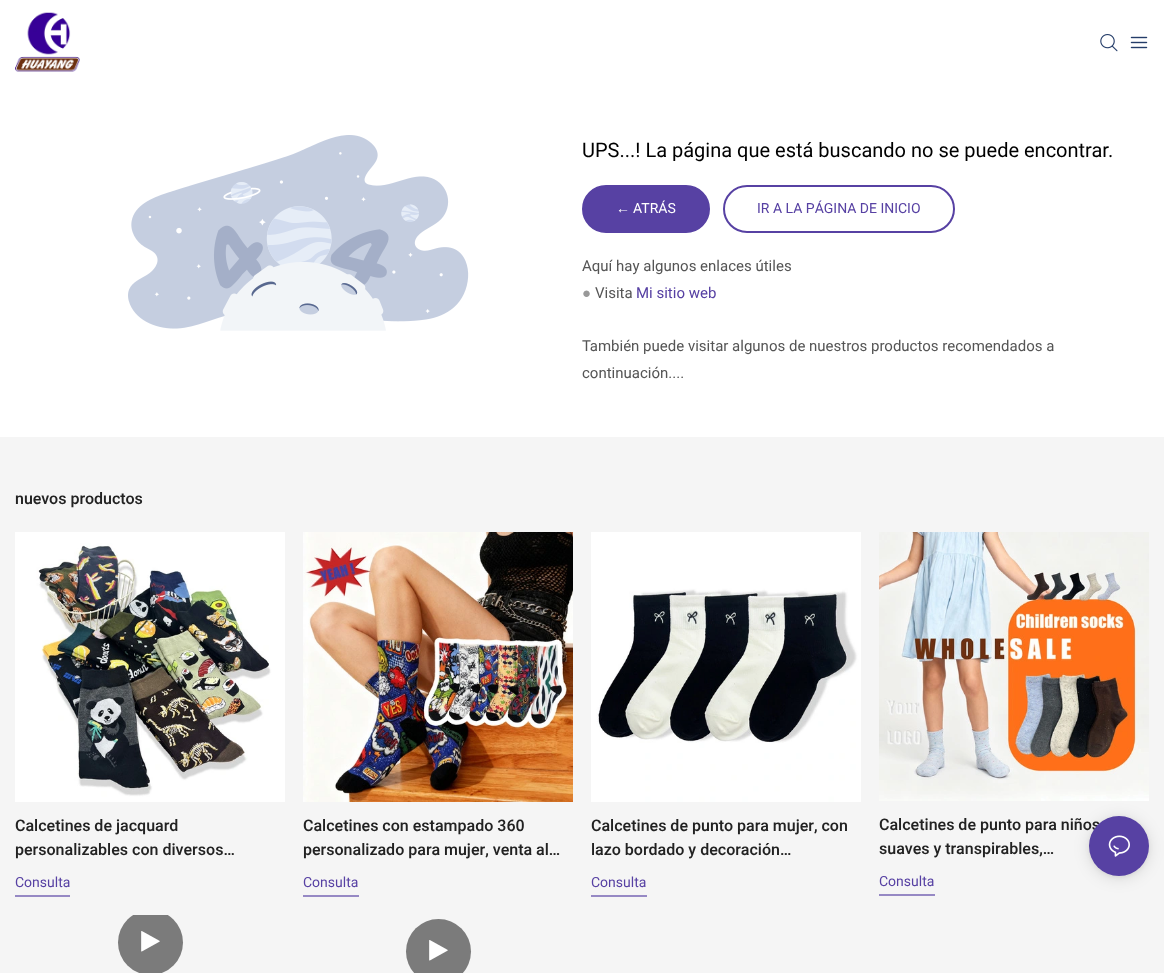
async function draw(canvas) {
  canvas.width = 1164;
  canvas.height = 973;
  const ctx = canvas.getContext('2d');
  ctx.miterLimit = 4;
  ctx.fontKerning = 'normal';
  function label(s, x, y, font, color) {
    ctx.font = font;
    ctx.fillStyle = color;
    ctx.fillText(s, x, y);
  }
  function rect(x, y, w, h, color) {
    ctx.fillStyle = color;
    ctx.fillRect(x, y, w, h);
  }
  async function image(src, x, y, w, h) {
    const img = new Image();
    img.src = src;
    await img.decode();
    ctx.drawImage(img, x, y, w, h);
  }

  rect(0, 0, 1164, 973, '#fff');
  await image('assets/img1.png', 15, 12, 65, 60);
  await image('assets/img2.png', 1100, 34, 18, 18);
  await image('assets/img3.png', 1130, 36, 18, 13);
  await image('assets/img4.png', 128, 135, 341, 196);
  label('UPS...! La página que está buscando no se puede encontrar.', 582, 157, '20px Roboto', '#000');
  ctx.fillStyle = '#5741a3';
  ctx.beginPath();
  ctx.roundRect(583, 186, 126, 46, 23);
  ctx.fill();
  ctx.strokeStyle = '#5741a3';
  ctx.lineWidth = 2;
  ctx.stroke();
  label('←', 616, 213, '14px Liberation Serif', '#fff');
  label('ATRÁS', 633, 213, '14px Heebo', '#fff');
  ctx.beginPath();
  ctx.roundRect(724, 186, 230, 46, 23);
  ctx.stroke();
  label('IR A LA PÁGINA DE INICIO', 757, 213, '14px Heebo', '#5741a3');
  label('Aquí hay algunos enlaces útiles', 582, 271, '15px Heebo', '#555');
  label('●', 582, 298, '15px Liberation Serif', '#999');
  label('Visita', 595, 298, '15px Heebo', '#555');
  label('Mi sitio web', 636, 298, '15px Heebo', '#5741a3');
  label('También puede visitar algunos de nuestros productos recomendados a', 582, 351, '15px Heebo', '#555');
  label('continuación....', 582, 378, '15px Heebo', '#555');
  rect(0, 437, 1164, 536, '#f5f5f5');
  label('nuevos productos', 15, 504, '500 16px Heebo', '#222');
  await image('assets/img5.png', 15, 532, 270, 270);
  label('Calcetines de jacquard', 15, 831, '500 16px Heebo', '#222');
  label('personalizables con diversos…', 15, 855, '500 16px Heebo', '#222');
  label('Consulta', 15, 887, '14px Roboto', '#5741a3');
  rect(15, 895, 55, 2, '#9689c4');
  await image('assets/img6.png', 303, 532, 270, 270);
  label('Calcetines con estampado 360', 303, 831, '500 16px Heebo', '#222');
  label('personalizado para mujer, venta al…', 303, 855, '500 16px Heebo', '#222');
  label('Consulta', 303, 887, '14px Roboto', '#5741a3');
  rect(303, 895, 56, 2, '#9689c4');
  await image('assets/img7.png', 591, 532, 270, 270);
  label('Calcetines de punto para mujer, con', 591, 831, '500 16px Heebo', '#222');
  label('lazo bordado y decoración…', 591, 855, '500 16px Heebo', '#222');
  label('Consulta', 591, 887, '14px Roboto', '#5741a3');
  rect(591, 895, 56, 2, '#9689c4');
  await image('assets/img8.png', 879, 532, 270, 269);
  label('Calcetines de punto para niños', 879, 830, '500 16px Heebo', '#222');
  label('suaves y transpirables,…', 879, 854, '500 16px Heebo', '#222');
  label('Consulta', 879, 886, '14px Roboto', '#5741a3');
  rect(879, 894, 56, 2, '#9689c4');
  ctx.save();
  ctx.beginPath();
  ctx.rect(15, 915, 270, 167);
  ctx.clip();
  ctx.fillStyle = '#7b7b7b';
  ctx.beginPath();
  ctx.arc(150.5, 942.5, 32.5, 0, 2 * Math.PI);
  ctx.fill();
  ctx.restore();
  await image('assets/img9.png', 141, 931, 19, 21);
  ctx.fillStyle = '#7b7b7b';
  ctx.beginPath();
  ctx.arc(438.5, 951.5, 32.5, 0, 2 * Math.PI);
  ctx.fill();
  await image('assets/img9.png', 429, 940, 19, 21);
  ctx.fillStyle = '#0000001f';
  ctx.filter = 'blur(8px)';
  ctx.beginPath();
  ctx.roundRect(1089, 818, 60, 60, 30);
  ctx.fill();
  ctx.filter = 'none';
  ctx.fillStyle = '#0000000f';
  ctx.filter = 'blur(2px)';
  ctx.beginPath();
  ctx.roundRect(1089, 817, 60, 60, 30);
  ctx.fill();
  ctx.filter = 'none';
  ctx.fillStyle = '#5741a3';
  ctx.beginPath();
  ctx.arc(1119, 846, 30, 0, 2 * Math.PI);
  ctx.fill();
  await image('assets/img10.png', 1108, 835, 22, 22);
}

draw(document.querySelector('canvas'));
